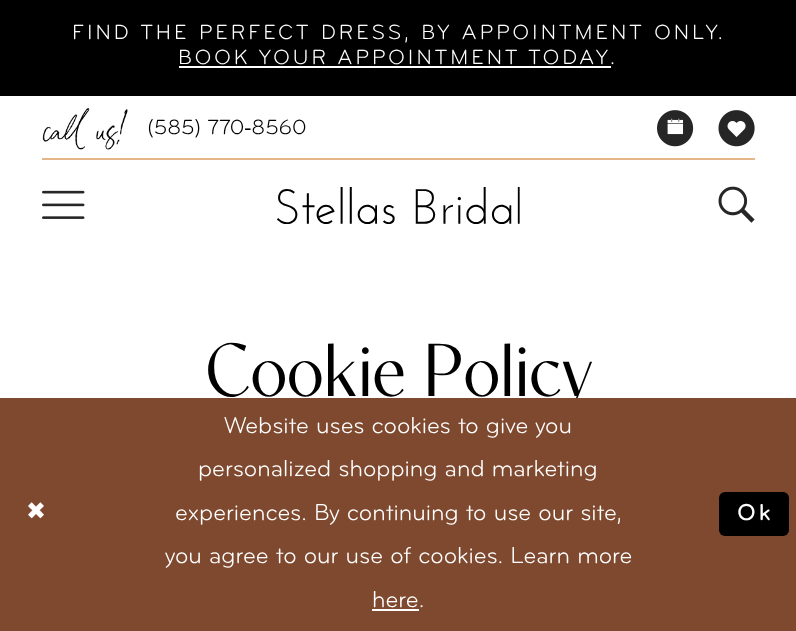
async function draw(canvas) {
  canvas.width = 796;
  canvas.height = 631;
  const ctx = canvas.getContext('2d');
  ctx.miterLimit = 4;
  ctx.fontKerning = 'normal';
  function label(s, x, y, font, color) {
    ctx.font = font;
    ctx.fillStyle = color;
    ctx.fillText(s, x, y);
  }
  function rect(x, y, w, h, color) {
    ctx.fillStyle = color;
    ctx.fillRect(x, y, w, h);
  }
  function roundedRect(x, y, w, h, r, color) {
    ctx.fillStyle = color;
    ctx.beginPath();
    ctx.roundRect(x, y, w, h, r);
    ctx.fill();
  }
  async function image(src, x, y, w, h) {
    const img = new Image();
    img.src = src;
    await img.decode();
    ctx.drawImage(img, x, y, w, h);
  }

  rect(0, 0, 796, 631, '#fff');
  rect(0, 0, 796, 96, '#000');
  ctx.letterSpacing = '3.05px';
  label('FIND THE PERFECT DRESS, BY APPOINTMENT ONLY.', 72, 39, '21.25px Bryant', '#fff');
  ctx.wordSpacing = '-1px';
  label('BOOK YOUR APPOINTMENT TODAY', 178, 64, '21.25px Bryant', '#fff');
  rect(179, 66, 432, 2, '#fff');
  ctx.wordSpacing = '0px';
  label('.', 610, 64, '21.25px Bryant', '#fff');
  await image('assets/img1.png', 42, 108, 86, 42);
  ctx.letterSpacing = '0px';
  label('(585) 770‑8560', 147, 134, '21.25px Bryant', '#000');
  await image('assets/img2.png', 657, 110, 37, 37);
  await image('assets/img3.png', 718, 110, 37, 37);
  rect(42, 158, 713, 2, '#e4b68a');
  await image('assets/img4.png', 42, 190, 43, 29);
  await image('assets/img5.png', 277, 187, 243, 37);
  await image('assets/img6.png', 718, 186, 37, 37);
  label('Cookie Policy', 205, 396, '300 74.5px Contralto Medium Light', '#000');
  rect(0, 398, 796, 233, '#7f492f');
  ctx.letterSpacing = '3px';
  label('✖', 26, 519, '23.9px DejaVu Sans', '#fff');
  ctx.letterSpacing = '0px';
  label('Website uses cookies to give you', 224, 433, '23.9px Bryant', '#fff');
  label('personalized shopping and marketing', 198, 476, '23.9px Bryant', '#fff');
  label('experiences. By continuing to use our site,', 175, 520, '23.9px Bryant', '#fff');
  label('you agree to our use of cookies. Learn more', 165, 563, '23.9px Bryant', '#fff');
  label('here.', 372, 607, '23.9px Bryant', '#fff');
  rect(372, 609, 47, 2, '#fff');
  roundedRect(719, 492, 70, 44, 6, '#000');
  ctx.letterSpacing = '3px';
  label('Ok', 737, 520, '500 23.9px Bryant', '#fff');
}

draw(document.querySelector('canvas'));
